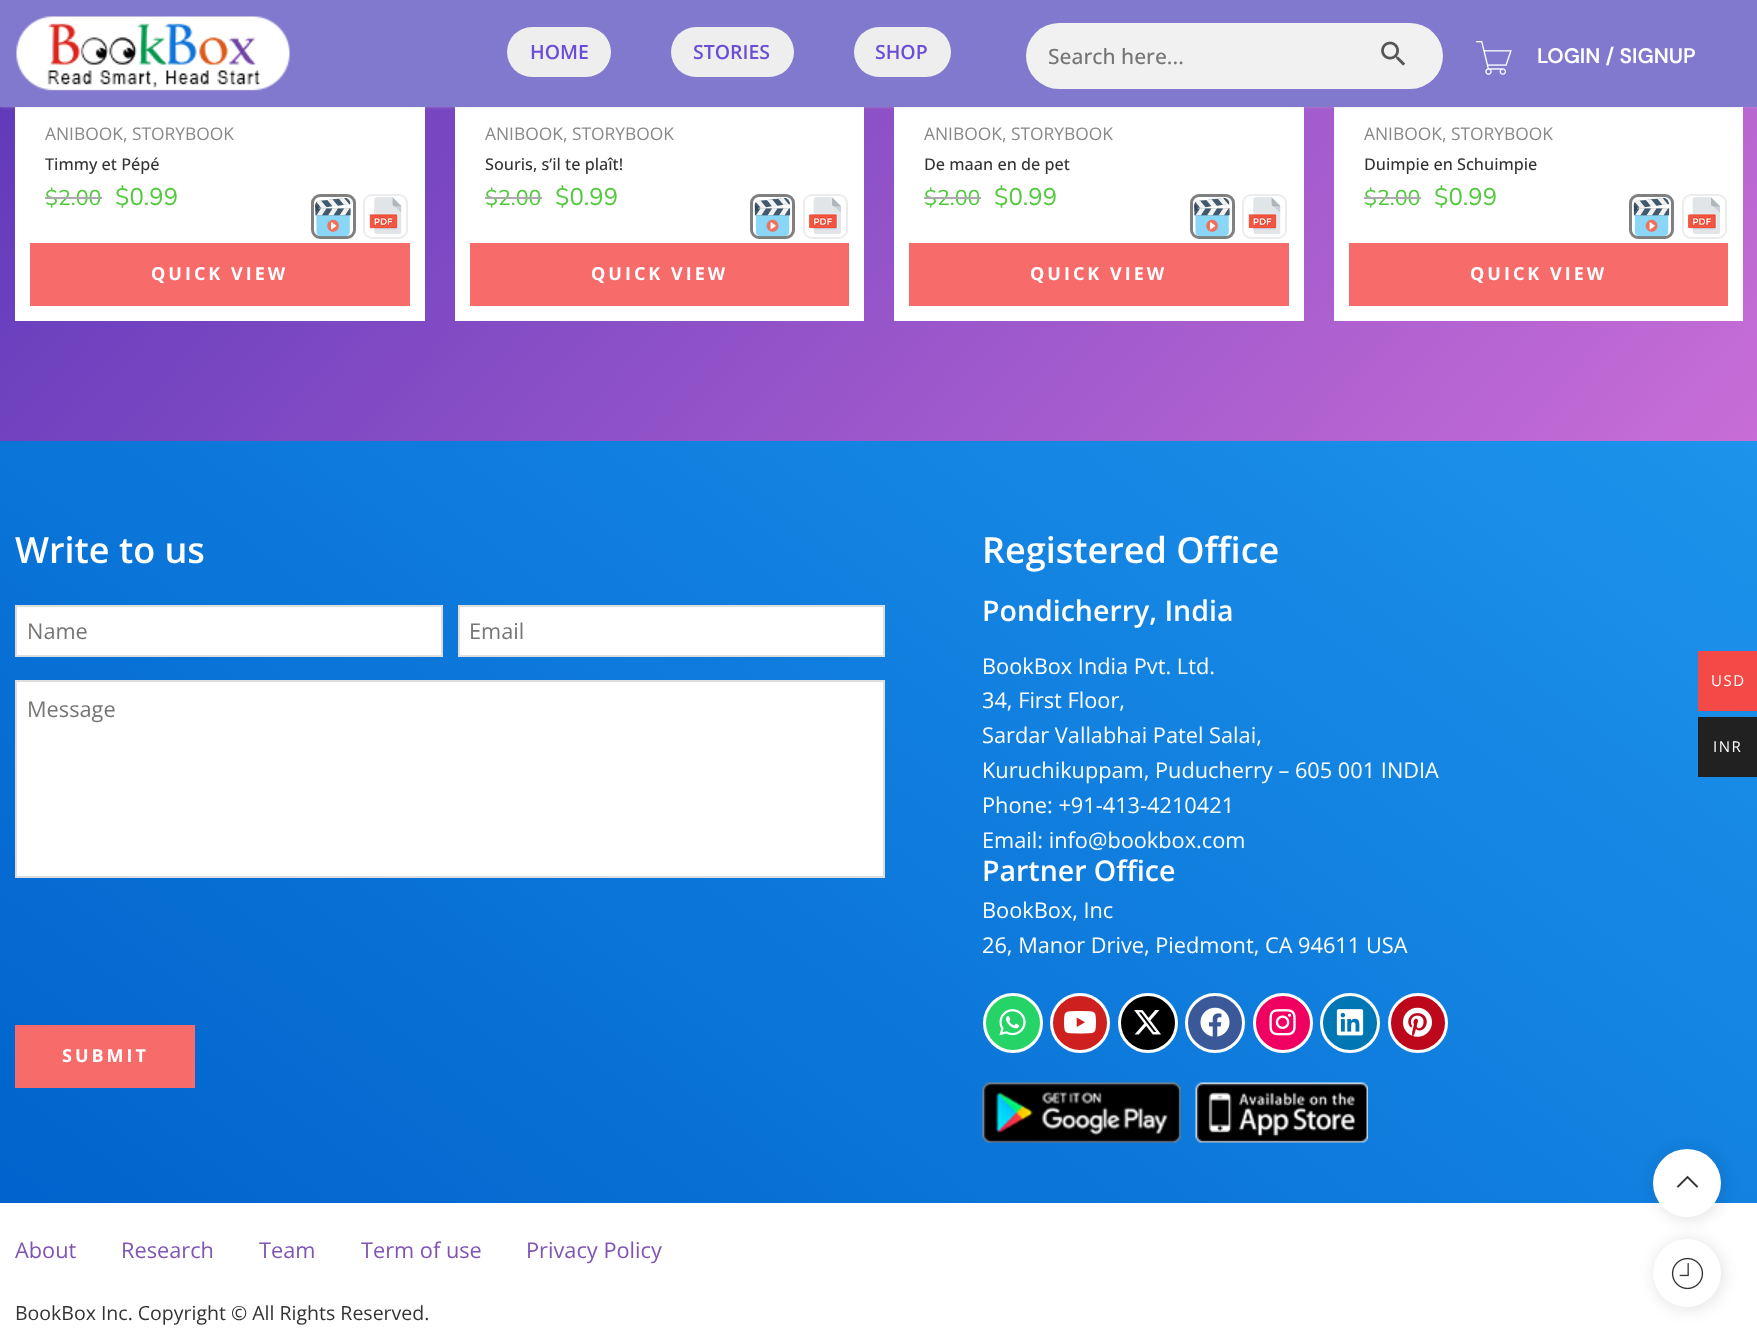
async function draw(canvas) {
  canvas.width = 1757;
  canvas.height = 1344;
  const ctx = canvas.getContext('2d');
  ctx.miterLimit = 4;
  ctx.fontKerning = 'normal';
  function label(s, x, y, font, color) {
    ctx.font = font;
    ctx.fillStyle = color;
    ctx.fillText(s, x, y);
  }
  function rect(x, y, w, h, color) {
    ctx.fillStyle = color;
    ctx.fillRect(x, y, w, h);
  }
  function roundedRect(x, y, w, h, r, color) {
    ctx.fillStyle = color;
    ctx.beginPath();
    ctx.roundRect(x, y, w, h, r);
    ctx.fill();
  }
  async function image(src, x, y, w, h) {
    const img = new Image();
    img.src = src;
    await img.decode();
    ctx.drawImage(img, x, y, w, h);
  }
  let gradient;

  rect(0, 0, 1757, 1344, '#fff');
  gradient = ctx.createLinearGradient(63, -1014, 1695, 508);
  gradient.addColorStop(0, '#3023ae');
  gradient.addColorStop(1, '#c86dd7');
  ctx.fillStyle = gradient;
  ctx.fillRect(0, 107, 1757, 334);
  rect(15, 107, 410, 214, '#fff');
  rect(455, 107, 409, 214, '#fff');
  rect(894, 107, 410, 214, '#fff');
  rect(1334, 107, 409, 214, '#fff');
  ctx.fillStyle = '#cabcbc80';
  ctx.filter = 'blur(1.5px)';
  ctx.beginPath();
  ctx.rect(0, 0, 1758, 107);
  ctx.fill();
  ctx.filter = 'none';
  rect(0, 0, 1757, 107, '#8179cd');
  await image('assets/img1.png', 16, 16, 274, 75);
  roundedRect(507, 27, 104, 50, 25, '#eee');
  label('HOME', 530, 59, '600 19.5px Open Sans', '#6b4dd5');
  roundedRect(671, 27, 123, 50, 25, '#eee');
  label('STORIES', 693, 59, '600 19.5px Open Sans', '#6b4dd5');
  roundedRect(854, 27, 97, 50, 25, '#eee');
  label('SHOP', 875, 59, '600 19.5px Open Sans', '#6b4dd5');
  roundedRect(1026, 23, 417, 66, 33, '#f1f1f1');
  label('Search here...', 1048, 64, '500 21px Open Sans', '#757575');
  await image('assets/img2.png', 1381, 41, 25, 25);
  await image('assets/img3.png', 1476, 41, 36, 34);
  label('LOGIN / SIGNUP', 1537, 63, '600 21px DM Sans', '#fff');
  label('ANIBOOK, STORYBOOK', 45, 140, '17.4px Open Sans', '#888');
  label('Timmy et Pépé', 45, 170, '500 16.25px Open Sans', '#333');
  label('$2.00', 45, 205, '21.5px Nunito Sans', '#51c93c');
  rect(45, 197, 57, 2, '#aaa');
  label('$0.99', 115, 205, '24px Nunito Sans', '#51c93c');
  ctx.beginPath();
  ctx.roundRect(312.5, 195.5, 42, 42, 7.5);
  ctx.strokeStyle = '#808080';
  ctx.lineWidth = 3;
  ctx.stroke();
  await image('assets/img4.png', 315, 197, 36, 40);
  ctx.beginPath();
  ctx.roundRect(364, 195, 43, 43, 8);
  ctx.strokeStyle = '#ececec';
  ctx.lineWidth = 2;
  ctx.stroke();
  await image('assets/img5.png', 369, 197, 33, 37);
  rect(30, 243, 380, 63, '#f76b6a');
  ctx.letterSpacing = '3px';
  label('QUICK VIEW', 151, 280, 'bold 18px Open Sans', '#fff');
  ctx.letterSpacing = '0px';
  label('ANIBOOK, STORYBOOK', 485, 140, '17.4px Open Sans', '#888');
  label('Souris, s’il te plaît!', 485, 170, '500 16.25px Open Sans', '#333');
  label('$2.00', 485, 205, '21.5px Nunito Sans', '#51c93c');
  rect(485, 197, 57, 2, '#aaa');
  label('$0.99', 555, 205, '24px Nunito Sans', '#51c93c');
  ctx.beginPath();
  ctx.roundRect(751.5, 195.5, 42, 42, 7.5);
  ctx.strokeStyle = '#808080';
  ctx.lineWidth = 3;
  ctx.stroke();
  await image('assets/img6.png', 754, 197, 37, 40);
  ctx.beginPath();
  ctx.roundRect(804, 195, 43, 43, 8);
  ctx.strokeStyle = '#ececec';
  ctx.lineWidth = 2;
  ctx.stroke();
  await image('assets/img7.png', 809, 197, 32, 37);
  rect(470, 243, 379, 63, '#f76b6a');
  ctx.letterSpacing = '3px';
  label('QUICK VIEW', 591, 280, 'bold 18px Open Sans', '#fff');
  ctx.letterSpacing = '0px';
  label('ANIBOOK, STORYBOOK', 924, 140, '17.4px Open Sans', '#888');
  label('De maan en de pet', 924, 170, '500 16.25px Open Sans', '#333');
  label('$2.00', 924, 205, '21.5px Nunito Sans', '#51c93c');
  rect(924, 197, 57, 2, '#aaa');
  label('$0.99', 994, 205, '24px Nunito Sans', '#51c93c');
  ctx.beginPath();
  ctx.roundRect(1191.5, 195.5, 42, 42, 7.5);
  ctx.strokeStyle = '#808080';
  ctx.lineWidth = 3;
  ctx.stroke();
  await image('assets/img8.png', 1194, 197, 36, 40);
  ctx.beginPath();
  ctx.roundRect(1243, 195, 43, 43, 8);
  ctx.strokeStyle = '#ececec';
  ctx.lineWidth = 2;
  ctx.stroke();
  await image('assets/img5.png', 1248, 197, 33, 37);
  rect(909, 243, 380, 63, '#f76b6a');
  ctx.letterSpacing = '3px';
  label('QUICK VIEW', 1030, 280, 'bold 18px Open Sans', '#fff');
  ctx.letterSpacing = '0px';
  label('ANIBOOK, STORYBOOK', 1364, 140, '17.4px Open Sans', '#888');
  label('Duimpie en Schuimpie', 1364, 170, '500 16.25px Open Sans', '#333');
  label('$2.00', 1364, 205, '21.5px Nunito Sans', '#51c93c');
  rect(1364, 197, 57, 2, '#aaa');
  label('$0.99', 1434, 205, '24px Nunito Sans', '#51c93c');
  ctx.beginPath();
  ctx.roundRect(1630.5, 195.5, 42, 42, 7.5);
  ctx.strokeStyle = '#808080';
  ctx.lineWidth = 3;
  ctx.stroke();
  await image('assets/img9.png', 1633, 197, 37, 40);
  ctx.beginPath();
  ctx.roundRect(1683, 195, 43, 43, 8);
  ctx.strokeStyle = '#ececec';
  ctx.lineWidth = 2;
  ctx.stroke();
  await image('assets/img7.png', 1688, 197, 32, 37);
  rect(1349, 243, 379, 63, '#f76b6a');
  ctx.letterSpacing = '3px';
  label('QUICK VIEW', 1470, 280, 'bold 18px Open Sans', '#fff');
  gradient = ctx.createLinearGradient(1380, 157, 378, 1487);
  gradient.addColorStop(0, '#1d93eb');
  gradient.addColorStop(1, '#0063cd');
  ctx.fillStyle = gradient;
  ctx.fillRect(0, 441, 1757, 762);
  ctx.letterSpacing = '0px';
  label('Write to us', 15, 563, '600 36px Open Sans', '#fff');
  ctx.beginPath();
  ctx.rect(16, 606, 426, 50);
  ctx.fill();
  ctx.strokeStyle = '#dedede';
  ctx.stroke();
  label('Name', 27, 639, '21.75px Open Sans', '#757575');
  ctx.fillStyle = '#fff';
  ctx.beginPath();
  ctx.rect(459, 606, 425, 50);
  ctx.fill();
  ctx.stroke();
  label('Email', 469, 639, '21.75px Open Sans', '#757575');
  ctx.fillStyle = '#fff';
  ctx.beginPath();
  ctx.rect(16, 681, 868, 196);
  ctx.fill();
  ctx.stroke();
  label('Message', 27, 717, '21.75px Open Sans', '#757575');
  rect(15, 1025, 180, 63, '#f76b6a');
  ctx.letterSpacing = '3px';
  label('SUBMIT', 62, 1062, 'bold 18px Open Sans', '#fff');
  ctx.letterSpacing = '0px';
  label('Registered Office', 982, 563, '600 36px Open Sans', '#fff');
  label('Pondicherry, India', 982, 621, '600 28.5px Open Sans', '#fff');
  label('BookBox India Pvt. Ltd.', 982, 674, '21.75px Open Sans', '#fff');
  label('34, First Floor,', 982, 708, '21.75px Open Sans', '#fff');
  label('Sardar Vallabhai Patel Salai,', 982, 743, '21.75px Open Sans', '#fff');
  label('Kuruchikuppam, Puducherry – 605 001 INDIA', 982, 778, '21.75px Open Sans', '#fff');
  label('Phone: +91-413-4210421', 982, 813, '21.75px Open Sans', '#fff');
  label('Email: info@bookbox.com', 982, 848, '21.75px Open Sans', '#fff');
  label('Partner Office', 982, 881, '600 28.5px Open Sans', '#fff');
  label('BookBox, Inc', 982, 918, '21.75px Open Sans', '#fff');
  label('26, Manor Drive, Piedmont, CA 94611 USA', 982, 953, '21.75px Open Sans', '#fff');
  ctx.fillStyle = '#25d366';
  ctx.beginPath();
  ctx.arc(1013, 1023, 28.5, 0, 2 * Math.PI);
  ctx.fill();
  ctx.strokeStyle = '#fff';
  ctx.lineWidth = 3;
  ctx.stroke();
  await image('assets/img10.png', 999, 1009, 27, 27);
  ctx.fillStyle = '#cd201f';
  ctx.beginPath();
  ctx.arc(1080, 1023, 28.5, 0, 2 * Math.PI);
  ctx.fill();
  ctx.stroke();
  await image('assets/img11.png', 1064, 1011, 32, 23);
  ctx.fillStyle = '#000';
  ctx.beginPath();
  ctx.arc(1148, 1023, 28.5, 0, 2 * Math.PI);
  ctx.fill();
  ctx.stroke();
  await image('assets/img12.png', 1134, 1010, 27, 25);
  ctx.fillStyle = '#3b5998';
  ctx.beginPath();
  ctx.arc(1215, 1023, 28.5, 0, 2 * Math.PI);
  ctx.fill();
  ctx.stroke();
  await image('assets/img13.png', 1200, 1007, 30, 30);
  ctx.fillStyle = '#f00161';
  ctx.beginPath();
  ctx.arc(1283, 1023, 28.5, 0, 2 * Math.PI);
  ctx.fill();
  ctx.stroke();
  await image('assets/img14.png', 1269, 1009, 27, 27);
  ctx.fillStyle = '#0077b5';
  ctx.beginPath();
  ctx.arc(1350, 1023, 28.5, 0, 2 * Math.PI);
  ctx.fill();
  ctx.stroke();
  await image('assets/img15.png', 1336, 1009, 28, 27);
  ctx.fillStyle = '#bd081c';
  ctx.beginPath();
  ctx.arc(1418, 1023, 28.5, 0, 2 * Math.PI);
  ctx.fill();
  ctx.stroke();
  await image('assets/img16.png', 1403, 1007, 29, 30);
  await image('assets/img17.png', 982, 1082, 199, 61);
  await image('assets/img18.png', 1195, 1082, 173, 61);
  label('About', 15, 1258, '21.75px Open Sans', '#7f54b3');
  label('Research', 121, 1258, '21.75px Open Sans', '#7f54b3');
  label('Team', 259, 1258, '21.75px Open Sans', '#7f54b3');
  label('Term of use', 361, 1258, '21.75px Open Sans', '#7f54b3');
  label('Privacy Policy', 526, 1258, '21.75px Open Sans', '#7f54b3');
  label('BookBox Inc. Copyright © All Rights Reserved.', 15, 1320, '19.5px Open Sans', '#333');
  rect(1698, 651, 59, 60, '#f44a47');
  ctx.letterSpacing = '1.5px';
  label('USD', 1711, 686, '15px Open Sans', '#fff');
  rect(1698, 717, 59, 60, '#212121');
  label('INR', 1713, 752, '15px Open Sans', '#fff');
  ctx.fillStyle = '#0000001a';
  ctx.filter = 'blur(7.5px)';
  ctx.beginPath();
  ctx.roundRect(1653, 1149, 71, 71, 35.5);
  ctx.fill();
  ctx.filter = 'none';
  ctx.fillStyle = '#fff';
  ctx.beginPath();
  ctx.arc(1687, 1183, 34, 0, 2 * Math.PI);
  ctx.fill();
  await image('assets/img19.png', 1676, 1175, 23, 13);
  ctx.fillStyle = '#0000001a';
  ctx.filter = 'blur(7.5px)';
  ctx.beginPath();
  ctx.roundRect(1653, 1239, 71, 71, 35.5);
  ctx.fill();
  ctx.filter = 'none';
  ctx.fillStyle = '#fff';
  ctx.beginPath();
  ctx.arc(1687, 1273, 34, 0, 2 * Math.PI);
  ctx.fill();
  await image('assets/img20.png', 1671, 1257, 33, 33);
}

draw(document.querySelector('canvas'));
